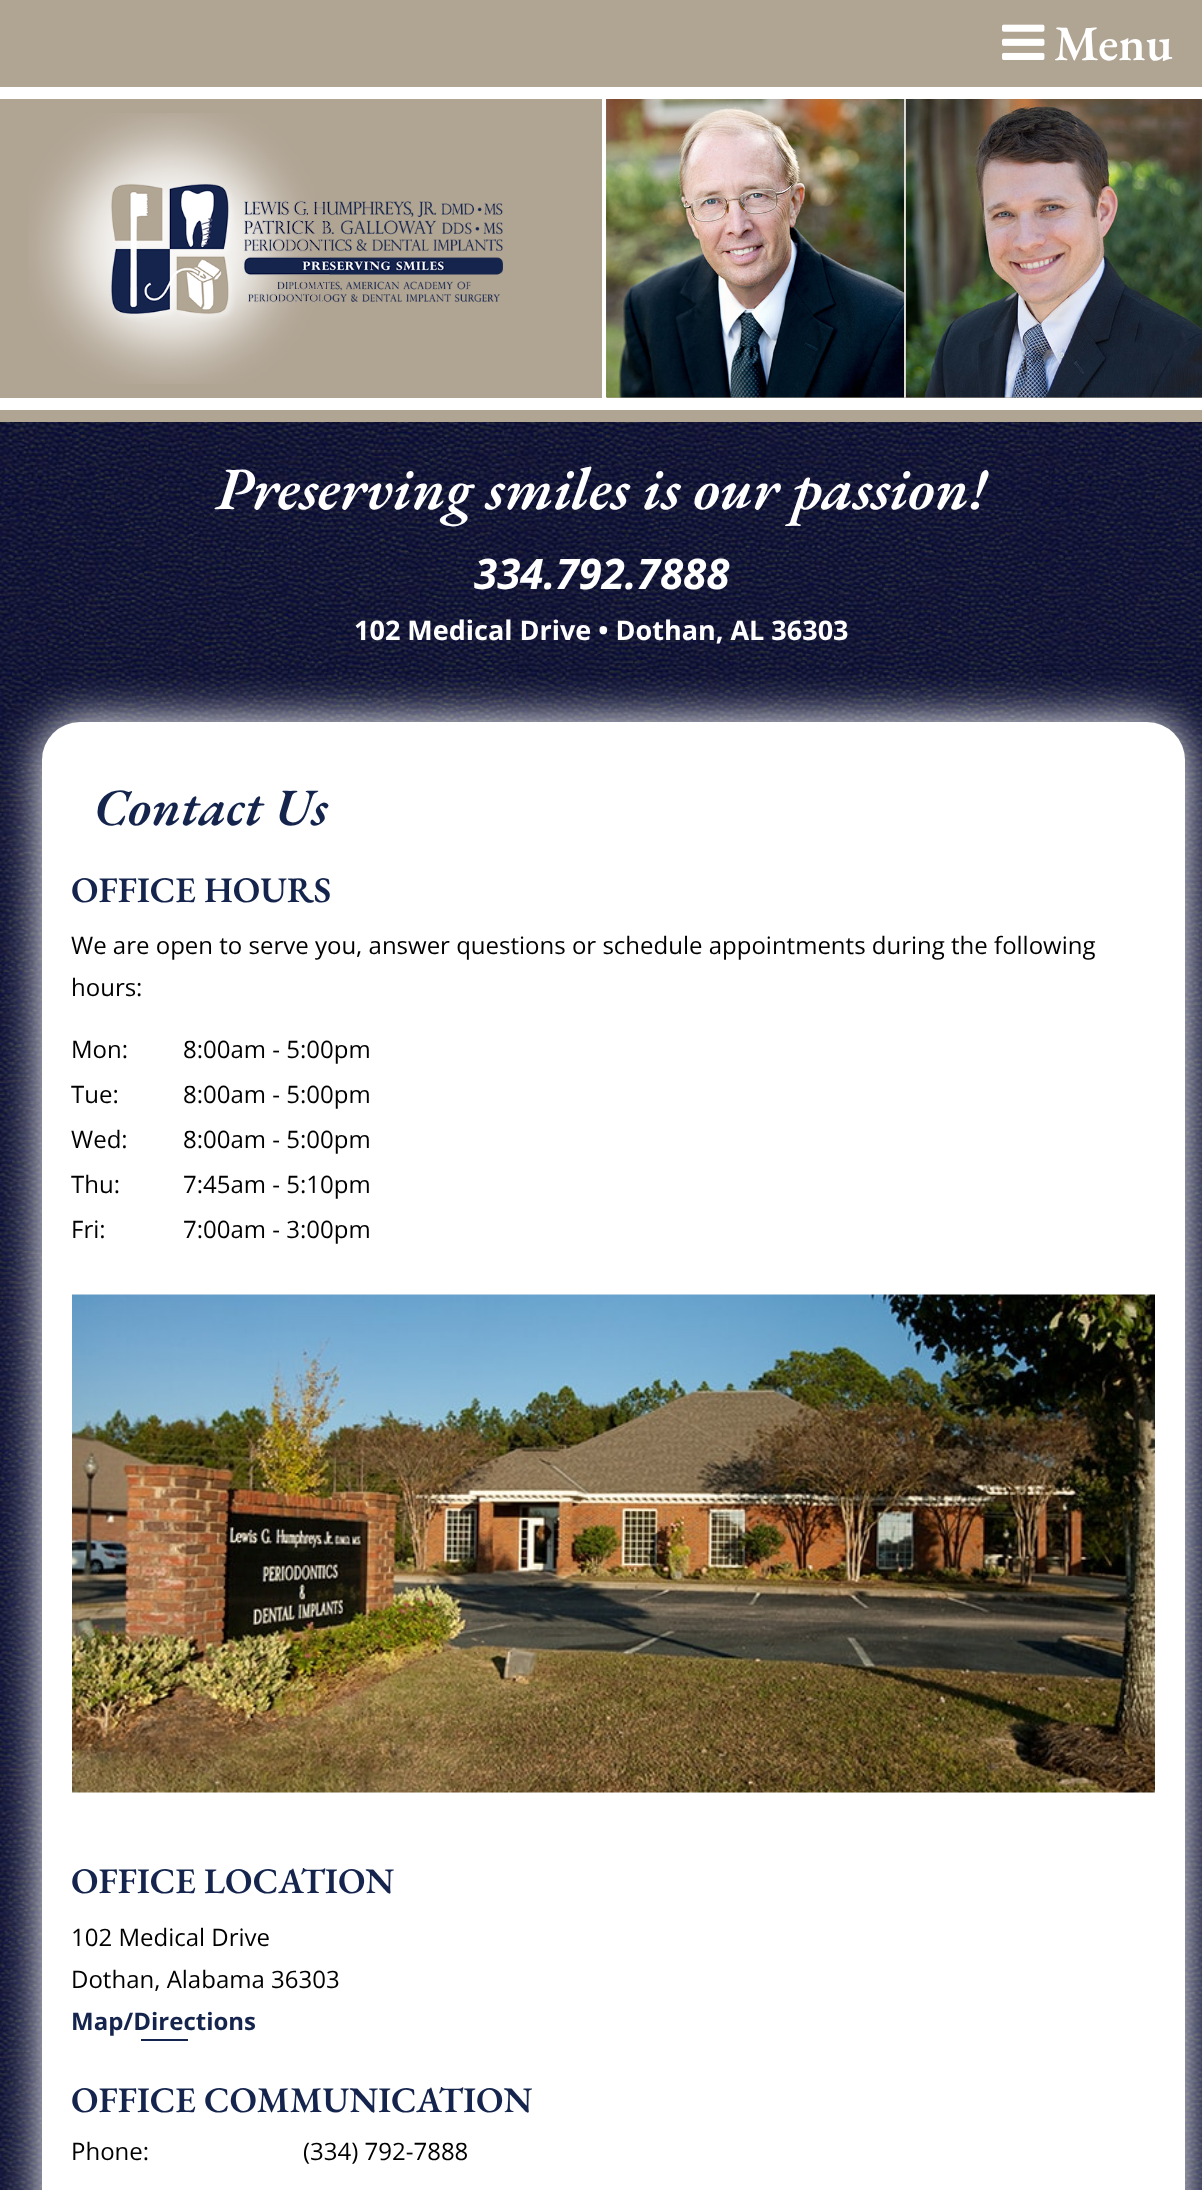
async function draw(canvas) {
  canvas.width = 1202;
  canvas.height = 2190;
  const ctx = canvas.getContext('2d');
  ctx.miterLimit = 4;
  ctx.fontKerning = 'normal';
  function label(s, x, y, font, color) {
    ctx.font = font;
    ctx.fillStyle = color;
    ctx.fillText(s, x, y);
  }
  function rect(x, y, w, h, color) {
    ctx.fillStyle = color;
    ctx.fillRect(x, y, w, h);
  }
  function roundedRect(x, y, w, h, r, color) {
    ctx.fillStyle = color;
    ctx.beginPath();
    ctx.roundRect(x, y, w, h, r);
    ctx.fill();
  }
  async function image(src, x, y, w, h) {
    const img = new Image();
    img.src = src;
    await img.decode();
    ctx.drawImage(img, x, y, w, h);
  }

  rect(0, 0, 1202, 2190, '#fff');
  await image('assets/img1.png', 0, 422, 1202, 1768);
  rect(0, 0, 1202, 422, '#b0a493');
  await image('assets/img2.png', 1002, 24, 43, 36);
  label('Menu', 1054, 60, '600 49.5px EB Garamond', '#fff');
  rect(0, 87, 1202, 12, '#fff');
  rect(0, 398, 1202, 12, '#fff');
  await image('assets/img3.png', 28, 113, 475, 271);
  rect(602, 99, 5, 299, '#fff');
  await image('assets/img4.png', 606, 99, 596, 299);
  label('Preserving smiles is our passion!', 216, 509, 'italic 600 60px EB Garamond', '#fff');
  label('334.792.7888', 474, 589, 'italic bold 42px Open Sans', '#fff');
  label('102 Medical Drive • Dothan, AL 36303', 354, 640, 'bold 27px Open Sans', '#fff');
  ctx.filter = 'blur(22.5px)';
  ctx.beginPath();
  ctx.roundRect(42, 722, 1143, 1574, 38);
  ctx.fill();
  ctx.filter = 'none';
  roundedRect(42, 722, 1143, 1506, 38, '#fff');
  label('Contact Us', 94, 825, 'italic 600 52.5px EB Garamond', '#14244d');
  label('OFFICE HOURS', 71, 902, '600 36px EB Garamond', '#14244d');
  label('We are open to serve you, answer questions or schedule appointments during the following', 71, 954, '24px Open Sans', '#000');
  label('hours:', 71, 996, '24px Open Sans', '#000');
  label('Mon:', 71, 1058, '24px Open Sans', '#000');
  label('8:00am - 5:00pm', 183, 1058, '24px Open Sans', '#000');
  label('Tue:', 71, 1103, '24px Open Sans', '#000');
  label('8:00am - 5:00pm', 183, 1103, '24px Open Sans', '#000');
  label('Wed:', 71, 1148, '24px Open Sans', '#000');
  label('8:00am - 5:00pm', 183, 1148, '24px Open Sans', '#000');
  label('Thu:', 71, 1193, '24px Open Sans', '#000');
  label('7:45am - 5:10pm', 183, 1193, '24px Open Sans', '#000');
  label('Fri:', 71, 1238, '24px Open Sans', '#000');
  label('7:00am - 3:00pm', 183, 1238, '24px Open Sans', '#000');
  await image('assets/img5.png', 72, 1294, 1083, 499);
  label('OFFICE LOCATION', 71, 1893, '600 36px EB Garamond', '#14244d');
  label('102 Medical Drive', 71, 1946, '24px Open Sans', '#000');
  label('Dothan, Alabama 36303', 71, 1988, '24px Open Sans', '#000');
  label('Map/Directions', 71, 2030, 'bold 24px Open Sans', '#14244d');
  rect(141, 2039, 47, 2, '#14244d');
  label('OFFICE COMMUNICATION', 71, 2112, '600 36px EB Garamond', '#14244d');
  label('Phone:', 71, 2160, '24px Open Sans', '#000');
  label('(334) 792-7888', 303, 2160, '24px Open Sans', '#000');
}

draw(document.querySelector('canvas'));
